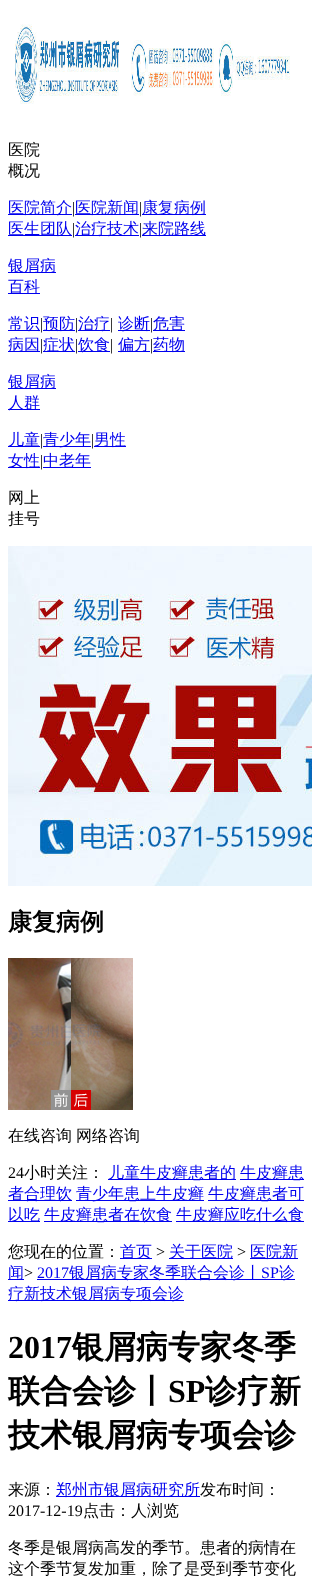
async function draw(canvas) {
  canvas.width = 312;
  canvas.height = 1586;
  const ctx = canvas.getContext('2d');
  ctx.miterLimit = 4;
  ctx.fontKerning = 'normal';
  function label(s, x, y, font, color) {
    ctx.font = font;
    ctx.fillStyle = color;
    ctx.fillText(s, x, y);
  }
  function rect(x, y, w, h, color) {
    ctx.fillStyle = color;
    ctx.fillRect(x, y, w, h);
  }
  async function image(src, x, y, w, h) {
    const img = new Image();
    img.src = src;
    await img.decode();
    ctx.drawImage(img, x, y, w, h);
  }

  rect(0, 0, 312, 1586, '#fff');
  await image('assets/img1.png', 15, 24, 275, 80);
  label('医院', 8, 155, '500 16px WenQuanYi Zen Hei', '#000');
  label('概况', 8, 176, '500 16px WenQuanYi Zen Hei', '#000');
  rect(8, 214, 64, 1, '#00e');
  label('医院简介', 8, 213, '500 16px WenQuanYi Zen Hei', '#00e');
  label('|', 72, 213, '16px Liberation Serif', '#000');
  rect(75, 214, 64, 1, '#00e');
  label('医院新闻', 75, 213, '500 16px WenQuanYi Zen Hei', '#00e');
  label('|', 139, 213, '16px Liberation Serif', '#000');
  rect(142, 214, 64, 1, '#00e');
  label('康复病例', 142, 213, '500 16px WenQuanYi Zen Hei', '#00e');
  rect(8, 235, 64, 1, '#00e');
  label('医生团队', 8, 234, '500 16px WenQuanYi Zen Hei', '#00e');
  label('|', 72, 234, '16px Liberation Serif', '#000');
  rect(75, 235, 64, 1, '#00e');
  label('治疗技术', 75, 234, '500 16px WenQuanYi Zen Hei', '#00e');
  label('|', 139, 234, '16px Liberation Serif', '#000');
  rect(142, 235, 64, 1, '#00e');
  label('来院路线', 142, 234, '500 16px WenQuanYi Zen Hei', '#00e');
  rect(8, 272, 48, 1, '#00e');
  label('银屑病', 8, 271, '500 16px WenQuanYi Zen Hei', '#00e');
  rect(8, 293, 32, 1, '#00e');
  label('百科', 8, 292, '500 16px WenQuanYi Zen Hei', '#00e');
  rect(8, 330, 32, 1, '#00e');
  label('常识', 8, 329, '500 16px WenQuanYi Zen Hei', '#00e');
  label('|', 40, 329, '16px Liberation Serif', '#000');
  rect(43, 330, 32, 1, '#00e');
  label('预防', 43, 329, '500 16px WenQuanYi Zen Hei', '#00e');
  label('|', 75, 329, '16px Liberation Serif', '#000');
  rect(78, 330, 32, 1, '#00e');
  label('治疗', 78, 329, '500 16px WenQuanYi Zen Hei', '#00e');
  label('|', 110, 329, '16px Liberation Serif', '#000');
  rect(118, 330, 32, 1, '#00e');
  label('诊断', 118, 329, '500 16px WenQuanYi Zen Hei', '#00e');
  label('|', 150, 329, '16px Liberation Serif', '#000');
  rect(153, 330, 32, 1, '#00e');
  label('危害', 153, 329, '500 16px WenQuanYi Zen Hei', '#00e');
  rect(8, 351, 32, 1, '#00e');
  label('病因', 8, 350, '500 16px WenQuanYi Zen Hei', '#00e');
  label('|', 40, 350, '16px Liberation Serif', '#000');
  rect(43, 351, 32, 1, '#00e');
  label('症状', 43, 350, '500 16px WenQuanYi Zen Hei', '#00e');
  label('|', 75, 350, '16px Liberation Serif', '#000');
  rect(78, 351, 32, 1, '#00e');
  label('饮食', 78, 350, '500 16px WenQuanYi Zen Hei', '#00e');
  label('|', 110, 350, '16px Liberation Serif', '#000');
  rect(118, 351, 32, 1, '#00e');
  label('偏方', 118, 350, '500 16px WenQuanYi Zen Hei', '#00e');
  label('|', 150, 350, '16px Liberation Serif', '#000');
  rect(153, 351, 32, 1, '#00e');
  label('药物', 153, 350, '500 16px WenQuanYi Zen Hei', '#00e');
  rect(8, 388, 48, 1, '#00e');
  label('银屑病', 8, 387, '500 16px WenQuanYi Zen Hei', '#00e');
  rect(8, 409, 32, 1, '#00e');
  label('人群', 8, 408, '500 16px WenQuanYi Zen Hei', '#00e');
  rect(8, 446, 32, 1, '#00e');
  label('儿童', 8, 445, '500 16px WenQuanYi Zen Hei', '#00e');
  label('|', 40, 445, '16px Liberation Serif', '#000');
  rect(43, 446, 48, 1, '#00e');
  label('青少年', 43, 445, '500 16px WenQuanYi Zen Hei', '#00e');
  label('|', 91, 445, '16px Liberation Serif', '#000');
  rect(94, 446, 32, 1, '#00e');
  label('男性', 94, 445, '500 16px WenQuanYi Zen Hei', '#00e');
  rect(8, 467, 32, 1, '#00e');
  label('女性', 8, 466, '500 16px WenQuanYi Zen Hei', '#00e');
  label('|', 40, 466, '16px Liberation Serif', '#000');
  rect(43, 467, 48, 1, '#00e');
  label('中老年', 43, 466, '500 16px WenQuanYi Zen Hei', '#00e');
  label('网上', 8, 503, '500 16px WenQuanYi Zen Hei', '#000');
  label('挂号', 8, 524, '500 16px WenQuanYi Zen Hei', '#000');
  await image('assets/img2.png', 8, 546, 304, 340);
  label('康复病例', 8, 930, 'bold 24px WenQuanYi Zen Hei', '#000');
  await image('assets/img3.png', 8, 958, 125, 152);
  label('在线咨询', 8, 1141, '500 16px WenQuanYi Zen Hei', '#000');
  label('网络咨询', 76, 1141, '500 16px WenQuanYi Zen Hei', '#000');
  label('24', 8, 1178, '16px Liberation Serif', '#000');
  label('小时关注：', 24, 1178, '500 16px WenQuanYi Zen Hei', '#000');
  rect(108, 1179, 128, 1, '#00e');
  label('儿童牛皮癣患者的', 108, 1178, '500 16px WenQuanYi Zen Hei', '#00e');
  rect(240, 1179, 64, 1, '#00e');
  label('牛皮癣患', 240, 1178, '500 16px WenQuanYi Zen Hei', '#00e');
  rect(8, 1200, 64, 1, '#00e');
  label('者合理饮', 8, 1199, '500 16px WenQuanYi Zen Hei', '#00e');
  rect(76, 1200, 128, 1, '#00e');
  label('青少年患上牛皮癣', 76, 1199, '500 16px WenQuanYi Zen Hei', '#00e');
  rect(208, 1200, 96, 1, '#00e');
  label('牛皮癣患者可', 208, 1199, '500 16px WenQuanYi Zen Hei', '#00e');
  rect(8, 1221, 32, 1, '#00e');
  label('以吃', 8, 1220, '500 16px WenQuanYi Zen Hei', '#00e');
  rect(44, 1221, 128, 1, '#00e');
  label('牛皮癣患者在饮食', 44, 1220, '500 16px WenQuanYi Zen Hei', '#00e');
  rect(176, 1221, 128, 1, '#00e');
  label('牛皮癣应吃什么食', 176, 1220, '500 16px WenQuanYi Zen Hei', '#00e');
  label('您现在的位置：', 8, 1257, '500 16px WenQuanYi Zen Hei', '#000');
  rect(120, 1258, 32, 1, '#00e');
  label('首页', 120, 1257, '500 16px WenQuanYi Zen Hei', '#00e');
  label('>', 156, 1257, '16px Liberation Serif', '#000');
  rect(169, 1258, 64, 1, '#00e');
  label('关于医院', 169, 1257, '500 16px WenQuanYi Zen Hei', '#00e');
  label('>', 237, 1257, '16px Liberation Serif', '#000');
  rect(250, 1258, 48, 1, '#00e');
  label('医院新', 250, 1257, '500 16px WenQuanYi Zen Hei', '#00e');
  rect(8, 1279, 16, 1, '#00e');
  label('闻', 8, 1278, '500 16px WenQuanYi Zen Hei', '#00e');
  label('>', 24, 1278, '16px Liberation Serif', '#000');
  label('2017', 37, 1278, '16px Liberation Serif', '#00e');
  rect(37, 1279, 258, 1, '#00e');
  label('银屑病专家冬季联合会诊丨', 69, 1278, '500 16px WenQuanYi Zen Hei', '#00e');
  label('SP', 261, 1278, '16px Liberation Serif', '#00e');
  label('诊', 279, 1278, '500 16px WenQuanYi Zen Hei', '#00e');
  rect(8, 1300, 176, 1, '#00e');
  label('疗新技术银屑病专项会诊', 8, 1299, '500 16px WenQuanYi Zen Hei', '#00e');
  label('2017', 8, 1358, 'bold 32px Liberation Serif', '#000');
  label('银屑病专家冬季', 72, 1358, 'bold 32px WenQuanYi Zen Hei', '#000');
  label('联合会诊丨', 8, 1402, 'bold 32px WenQuanYi Zen Hei', '#000');
  label('SP', 168, 1402, 'bold 32px Liberation Serif', '#000');
  label('诊疗新', 205, 1402, 'bold 32px WenQuanYi Zen Hei', '#000');
  label('技术银屑病专项会诊', 8, 1446, 'bold 32px WenQuanYi Zen Hei', '#000');
  label('来源：', 8, 1495, '500 16px WenQuanYi Zen Hei', '#000');
  rect(56, 1496, 144, 1, '#00e');
  label('郑州市银屑病研究所', 56, 1495, '500 16px WenQuanYi Zen Hei', '#00e');
  label('发布时间：', 200, 1495, '500 16px WenQuanYi Zen Hei', '#000');
  label('2017-12-19', 8, 1516, '16px Liberation Serif', '#000');
  label('点击：人浏览', 83, 1516, '500 16px WenQuanYi Zen Hei', '#000');
  label('冬季是银屑病高发的季节。患者的病情在', 8, 1553, '500 16px WenQuanYi Zen Hei', '#000');
  label('这个季节复发加重，除了是受到季节变化', 8, 1574, '500 16px WenQuanYi Zen Hei', '#000');
}

draw(document.querySelector('canvas'));
